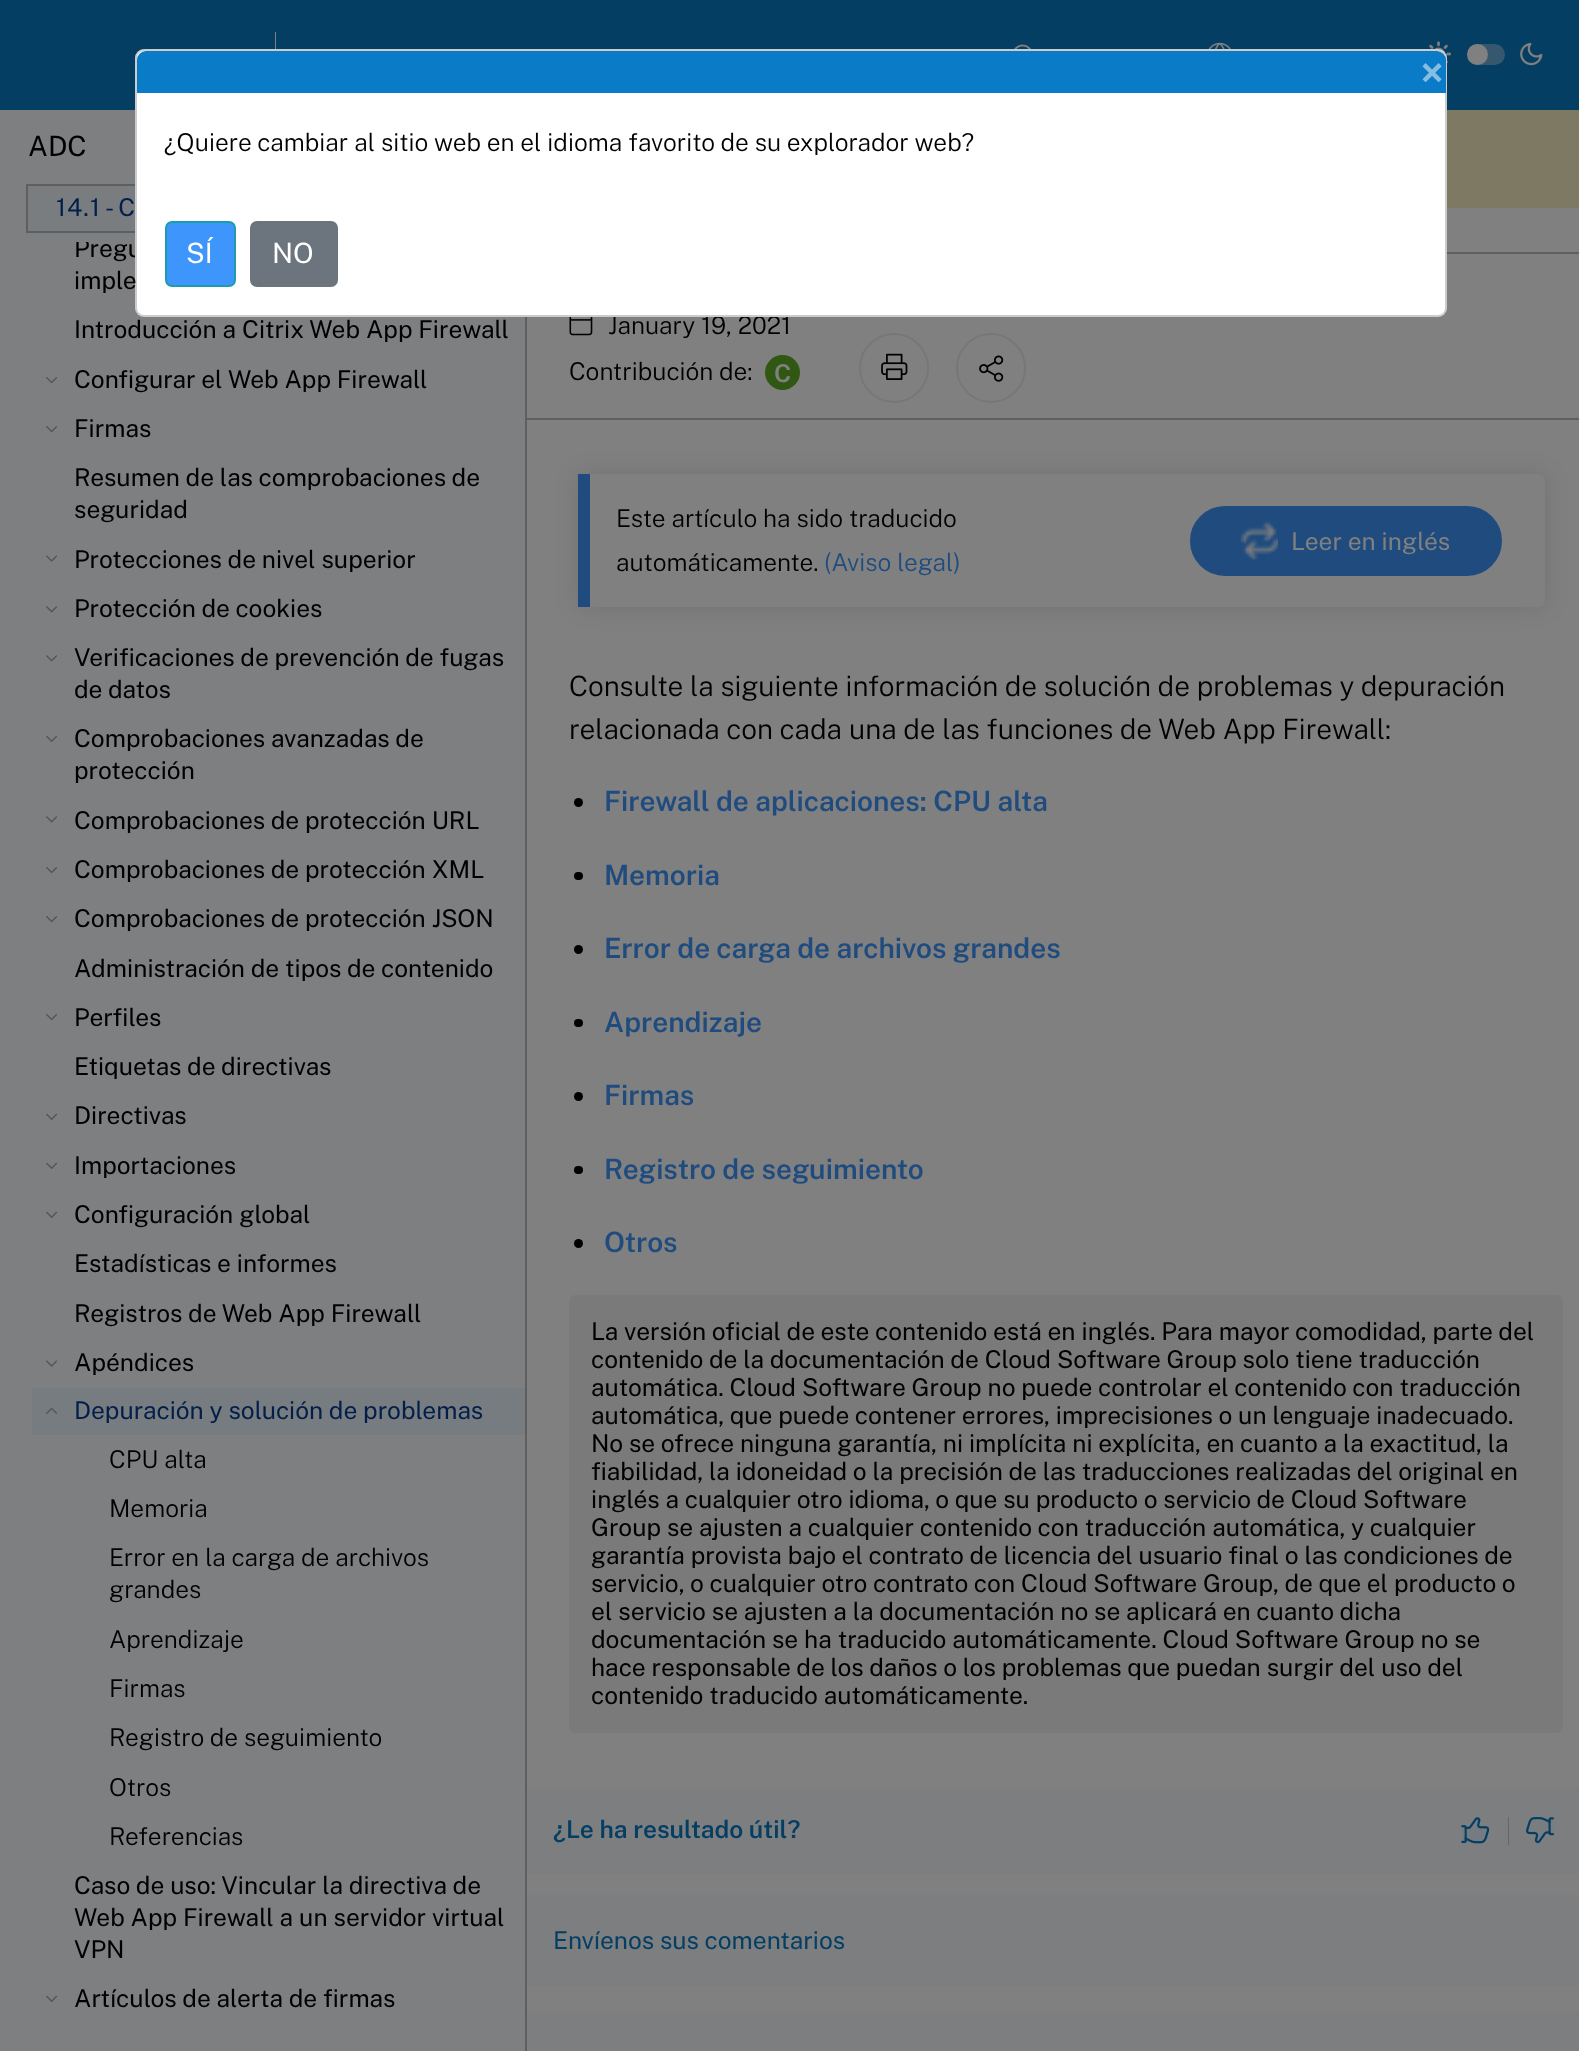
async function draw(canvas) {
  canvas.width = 1579;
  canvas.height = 2051;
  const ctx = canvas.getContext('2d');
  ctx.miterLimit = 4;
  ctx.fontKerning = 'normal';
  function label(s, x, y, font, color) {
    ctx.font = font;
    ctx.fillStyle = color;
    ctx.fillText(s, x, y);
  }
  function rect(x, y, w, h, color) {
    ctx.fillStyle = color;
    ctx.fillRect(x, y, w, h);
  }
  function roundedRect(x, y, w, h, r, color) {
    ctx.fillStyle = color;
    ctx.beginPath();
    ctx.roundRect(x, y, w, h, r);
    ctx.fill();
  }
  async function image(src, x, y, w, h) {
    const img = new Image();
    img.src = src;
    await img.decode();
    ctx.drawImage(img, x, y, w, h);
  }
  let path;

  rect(0, 0, 1579, 2051, '#808080');
  rect(0, 0, 1579, 110, '#053e63');
  ctx.fillStyle = '#808080';
  path = new Path2D('M276 32H275V83L276 84V83Z');
  ctx.fill(path);
  await image('assets/img1.png', 1014, 44, 17, 5);
  await image('assets/img2.png', 1208, 42, 23, 7);
  await image('assets/img3.png', 1429, 41, 23, 23);
  roundedRect(1467, 44, 38, 21, 10.5, '#36586f');
  ctx.fillStyle = '#808080';
  ctx.beginPath();
  ctx.arc(1477.5, 54.5, 10.5, 0, 2 * Math.PI);
  ctx.fill();
  await image('assets/img4.png', 1520, 42, 23, 24);
  rect(0, 110, 525, 1941, '#7d7f80');
  rect(28, 186, 107, 45, '#797d80');
  ctx.strokeStyle = '#5f5f5f';
  ctx.lineWidth = 2;
  ctx.strokeRect(27, 185, 471, 47);
  ctx.save();
  ctx.beginPath();
  ctx.rect(32, 242, 493, 1781);
  ctx.clip();
  label('Pregu', 74, 257, '24.5px Public Sans', '#000');
  ctx.restore();
  label('January 19, 2021', 608, 334, '300 24.5px Public Sans', '#000');
  roundedRect(135, 49, 1312, 268, 9, '#fff');
  ctx.beginPath();
  ctx.roundRect(136, 50, 1310, 266, 8);
  ctx.strokeStyle = '#00000033';
  ctx.stroke();
  ctx.fillStyle = '#0a7bc6';
  ctx.beginPath();
  ctx.roundRect(137, 51, 1309, 42, [9, 9, 0, 0]);
  ctx.fill();
  label('×', 1420, 88, 'bold 42px Public Sans', '#85bde3');
  label('¿Quiere cambiar al sitio web en el idioma favorito de su explorador web?', 164, 151, '300 24.5px Public Sans', '#000');
  ctx.fillStyle = '#3e96fc';
  ctx.beginPath();
  ctx.roundRect(166, 222, 69, 64, 6);
  ctx.fill();
  ctx.strokeStyle = '#1c9cad';
  ctx.stroke();
  label('SÍ', 186, 263, '28px Public Sans', '#fff');
  ctx.fillStyle = '#6c757d';
  ctx.beginPath();
  ctx.roundRect(251, 222, 86, 64, 6);
  ctx.fill();
  ctx.strokeStyle = '#6c757d';
  ctx.stroke();
  label('NO', 272, 263, '28px Public Sans', '#fff');
  rect(525, 317, 2, 1734, '#5f5f5f');
  label('ADC', 28, 156, '28px Public Sans', '#000');
  ctx.letterSpacing = '1px';
  label('14.1 - C', 56, 216, '24.5px Public Sans', '#031e49');
  ctx.letterSpacing = '0px';
  label('imple', 74, 289, '24.5px Public Sans', '#000');
  label('Introducción a Citrix Web App Firewall', 74, 338, '24.5px Public Sans', '#000');
  await image('assets/img5.png', 46, 377, 12, 7);
  label('Configurar el Web App Firewall', 74, 388, '24.5px Public Sans', '#000');
  await image('assets/img5.png', 46, 426, 12, 7);
  label('Firmas', 74, 437, '24.5px Public Sans', '#000');
  label('Resumen de las comprobaciones de', 74, 486, '24.5px Public Sans', '#000');
  label('seguridad', 74, 518, '24.5px Public Sans', '#000');
  await image('assets/img6.png', 46, 555, 12, 7);
  label('Protecciones de nivel superior', 74, 568, '24.5px Public Sans', '#000');
  await image('assets/img7.png', 46, 606, 11, 7);
  label('Protección de cookies', 74, 617, '24.5px Public Sans', '#000');
  await image('assets/img7.png', 46, 655, 11, 7);
  label('Verificaciones de prevención de fugas', 74, 666, '24.5px Public Sans', '#000');
  label('de datos', 74, 698, '24.5px Public Sans', '#000');
  await image('assets/img8.png', 46, 735, 12, 7);
  label('Comprobaciones avanzadas de', 74, 747, '24.5px Public Sans', '#000');
  label('protección', 74, 779, '24.5px Public Sans', '#000');
  await image('assets/img7.png', 46, 816, 11, 7);
  label('Comprobaciones de protección URL', 74, 829, '24.5px Public Sans', '#000');
  await image('assets/img5.png', 46, 867, 12, 7);
  label('Comprobaciones de protección XML', 74, 878, '24.5px Public Sans', '#000');
  await image('assets/img5.png', 46, 916, 12, 7);
  label('Comprobaciones de protección JSON', 74, 927, '24.5px Public Sans', '#000');
  label('Administración de tipos de contenido', 74, 977, '24.5px Public Sans', '#000');
  await image('assets/img5.png', 46, 1014, 12, 7);
  label('Perfiles', 74, 1026, '24.5px Public Sans', '#000');
  label('Etiquetas de directivas', 74, 1075, '24.5px Public Sans', '#000');
  await image('assets/img8.png', 46, 1113, 12, 7);
  label('Directivas', 74, 1124, '24.5px Public Sans', '#000');
  await image('assets/img8.png', 46, 1162, 12, 7);
  label('Importaciones', 74, 1174, '24.5px Public Sans', '#000');
  await image('assets/img8.png', 46, 1211, 12, 7);
  label('Configuración global', 74, 1223, '24.5px Public Sans', '#000');
  label('Estadísticas e informes', 74, 1272, '24.5px Public Sans', '#000');
  label('Registros de Web App Firewall', 74, 1322, '24.5px Public Sans', '#000');
  await image('assets/img6.png', 46, 1360, 12, 7);
  label('Apéndices', 74, 1371, '24.5px Public Sans', '#000');
  rect(32, 1388, 493, 47, '#767c80');
  await image('assets/img9.png', 46, 1407, 12, 7);
  label('Depuración y solución de problemas', 74, 1419, '24.5px Public Sans', '#031e49');
  label('CPU alta', 109, 1468, '300 24.5px Public Sans', '#000');
  label('Memoria', 109, 1517, '300 24.5px Public Sans', '#000');
  label('Error en la carga de archivos', 109, 1566, '300 24.5px Public Sans', '#000');
  label('grandes', 109, 1598, '300 24.5px Public Sans', '#000');
  label('Aprendizaje', 109, 1648, '300 24.5px Public Sans', '#000');
  label('Firmas', 109, 1697, '300 24.5px Public Sans', '#000');
  label('Registro de seguimiento', 109, 1746, '300 24.5px Public Sans', '#000');
  label('Otros', 109, 1796, '300 24.5px Public Sans', '#000');
  label('Referencias', 109, 1845, '300 24.5px Public Sans', '#000');
  label('Caso de uso: Vincular la directiva de', 74, 1894, '24.5px Public Sans', '#000');
  label('Web App Firewall a un servidor virtual', 74, 1926, '24.5px Public Sans', '#000');
  label('VPN', 74, 1958, '24.5px Public Sans', '#000');
  await image('assets/img8.png', 46, 1995, 12, 7);
  label('Artículos de alerta de firmas', 74, 2007, '24.5px Public Sans', '#000');
  rect(1447, 110, 132, 98, '#7d7963');
  rect(1447, 252, 132, 2, '#5f5f5f');
  rect(527, 418, 1052, 2, '#5f5f5f');
  await image('assets/img10.png', 569, 317, 24, 19);
  label('Contribución de:', 569, 380, '300 24.5px Public Sans', '#000');
  ctx.fillStyle = '#315812';
  ctx.beginPath();
  ctx.arc(782.5, 372.5, 17.5, 0, 2 * Math.PI);
  ctx.fill();
  label('C', 774, 382, '600 24.5px Public Sans', '#808080');
  ctx.beginPath();
  ctx.arc(894, 368, 34, 0, 2 * Math.PI);
  ctx.strokeStyle = '#00000012';
  ctx.stroke();
  await image('assets/img11.png', 881, 353, 27, 27);
  ctx.beginPath();
  ctx.arc(991, 368, 34, 0, 2 * Math.PI);
  ctx.stroke();
  await image('assets/img12.png', 979, 355, 25, 27);
  ctx.fillStyle = '#0000001c';
  ctx.filter = 'blur(12px)';
  ctx.beginPath();
  ctx.roundRect(578, 474, 967, 133, 7);
  ctx.fill();
  ctx.filter = 'none';
  roundedRect(578, 474, 967, 133, 7, '#808080');
  rect(578, 474, 12, 133, '#1f4b7e');
  label('Este artículo ha sido traducido', 616, 527, '300 24.5px Public Sans', '#000');
  label('automáticamente.', 616, 571, '300 24.5px Public Sans', '#000');
  label('(Aviso legal)', 824, 571, '300 24.5px Public Sans', '#1f4b7e');
  ctx.beginPath();
  ctx.roundRect(1192, 508, 308, 66, 33);
  ctx.fill();
  ctx.strokeStyle = '#1f4b7e';
  ctx.lineWidth = 4;
  ctx.stroke();
  await image('assets/img13.png', 1240, 520, 38, 40);
  label('Leer en inglés', 1291, 550, '24.5px Public Sans', '#808080');
  label('Consulte la siguiente información de solución de problemas y depuración', 569, 696, '300 28px Public Sans', '#000');
  label('relacionada con cada una de las funciones de Web App Firewall:', 569, 739, '300 28px Public Sans', '#000');
  ctx.beginPath();
  ctx.arc(578.5, 802.5, 4.5, 0, 2 * Math.PI);
  ctx.fill();
  label('Firewall de aplicaciones: CPU alta', 604, 811, '600 28px Public Sans', '#1f4b7e');
  roundedRect(574, 872, 9, 8, 4, '#000');
  label('Memoria', 604, 885, '600 28px Public Sans', '#1f4b7e');
  ctx.fillStyle = '#000';
  ctx.beginPath();
  ctx.arc(578.5, 949.5, 4.5, 0, 2 * Math.PI);
  ctx.fill();
  label('Error de carga de archivos grandes', 604, 958, '600 28px Public Sans', '#1f4b7e');
  roundedRect(574, 1019, 9, 8, 4, '#000');
  label('Aprendizaje', 604, 1032, '600 28px Public Sans', '#1f4b7e');
  ctx.fillStyle = '#000';
  ctx.beginPath();
  ctx.arc(578.5, 1096.5, 4.5, 0, 2 * Math.PI);
  ctx.fill();
  label('Firmas', 604, 1105, '600 28px Public Sans', '#1f4b7e');
  roundedRect(574, 1166, 9, 8, 4, '#000');
  label('Registro de seguimiento', 604, 1179, '600 28px Public Sans', '#1f4b7e');
  ctx.fillStyle = '#000';
  ctx.beginPath();
  ctx.arc(578.5, 1243.5, 4.5, 0, 2 * Math.PI);
  ctx.fill();
  label('Otros', 604, 1252, '600 28px Public Sans', '#1f4b7e');
  roundedRect(569, 1295, 994, 438, 7, '#7a7a7a');
  label('La versión oficial de este contenido está en inglés. Para mayor comodidad, parte del', 591, 1340, '24.5px Public Sans', '#000');
  label('contenido de la documentación de Cloud Software Group solo tiene traducción', 591, 1368, '24.5px Public Sans', '#000');
  label('automática. Cloud Software Group no puede controlar el contenido con traducción', 591, 1396, '24.5px Public Sans', '#000');
  label('automática, que puede contener errores, imprecisiones o un lenguaje inadecuado.', 591, 1424, '24.5px Public Sans', '#000');
  label('No se ofrece ninguna garantía, ni implícita ni explícita, en cuanto a la exactitud, la', 591, 1452, '24.5px Public Sans', '#000');
  label('fiabilidad, la idoneidad o la precisión de las traducciones realizadas del original en', 591, 1480, '24.5px Public Sans', '#000');
  label('inglés a cualquier otro idioma, o que su producto o servicio de Cloud Software', 591, 1508, '24.5px Public Sans', '#000');
  label('Group se ajusten a cualquier contenido con traducción automática, y cualquier', 591, 1536, '24.5px Public Sans', '#000');
  label('garantía provista bajo el contrato de licencia del usuario final o las condiciones de', 591, 1564, '24.5px Public Sans', '#000');
  label('servicio, o cualquier otro contrato con Cloud Software Group, de que el producto o', 591, 1592, '24.5px Public Sans', '#000');
  label('el servicio se ajusten a la documentación no se aplicará en cuanto dicha', 591, 1620, '24.5px Public Sans', '#000');
  label('documentación se ha traducido automáticamente. Cloud Software Group no se', 591, 1648, '24.5px Public Sans', '#000');
  label('hace responsable de los daños o los problemas que puedan surgir del uso del', 591, 1676, '24.5px Public Sans', '#000');
  label('contenido traducido automáticamente.', 591, 1704, '24.5px Public Sans', '#000');
  rect(527, 1789, 1052, 85, '#7c7e80');
  label('¿Le ha resultado útil?', 553, 1838, '600 24.5px Public Sans', '#053e63');
  await image('assets/img14.png', 1461, 1817, 28, 27);
  rect(1508, 1817, 1, 28, '#636566');
  await image('assets/img15.png', 1526, 1817, 28, 27);
  rect(527, 1895, 1052, 91, '#7c7e80');
  label('Envíenos sus comentarios', 553, 1949, '24.5px Public Sans', '#053e63');
  rect(527, 2013, 1052, 38, '#7c7e80');
}

draw(document.querySelector('canvas'));
